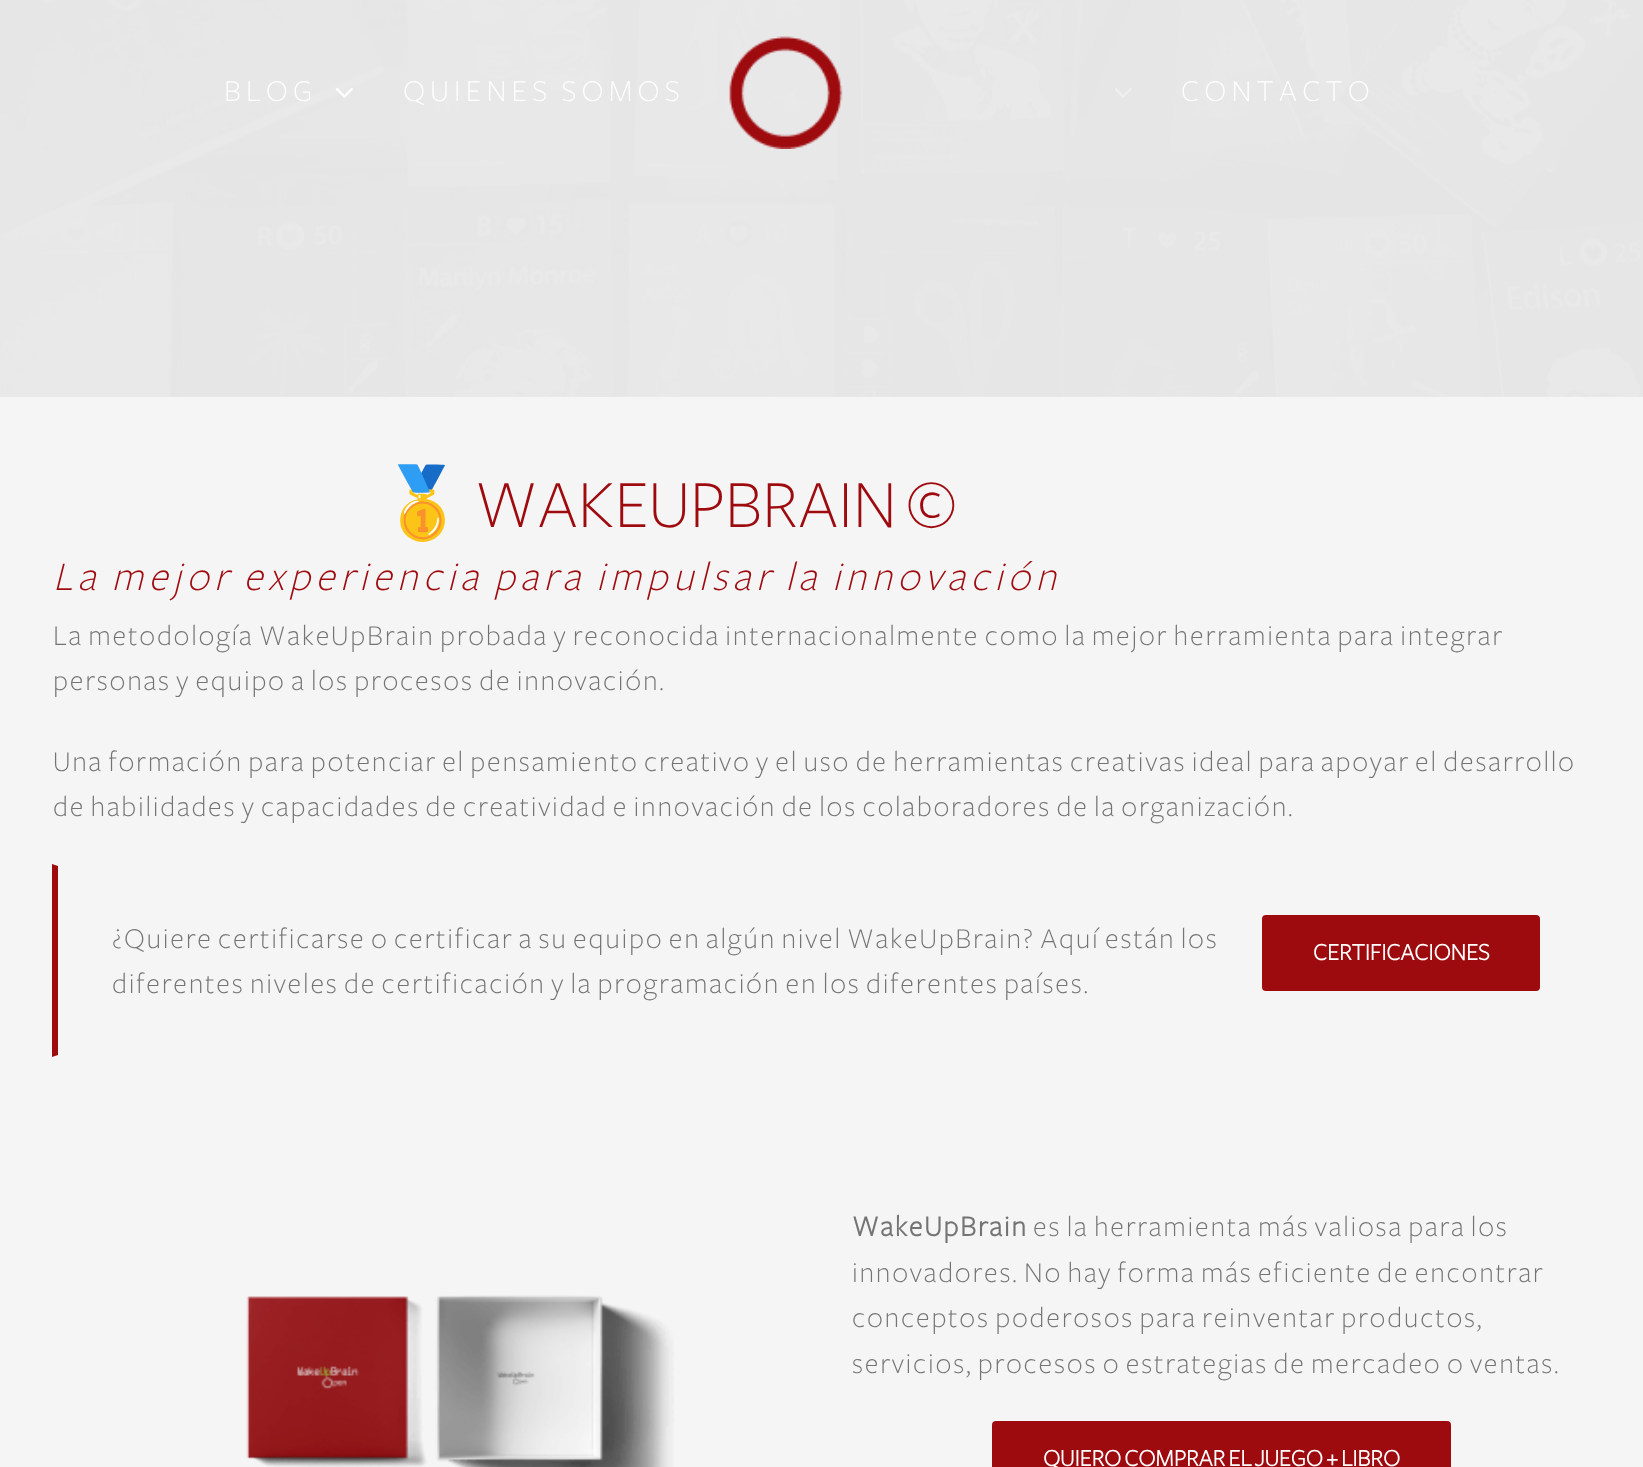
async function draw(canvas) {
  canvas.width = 1643;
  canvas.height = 1467;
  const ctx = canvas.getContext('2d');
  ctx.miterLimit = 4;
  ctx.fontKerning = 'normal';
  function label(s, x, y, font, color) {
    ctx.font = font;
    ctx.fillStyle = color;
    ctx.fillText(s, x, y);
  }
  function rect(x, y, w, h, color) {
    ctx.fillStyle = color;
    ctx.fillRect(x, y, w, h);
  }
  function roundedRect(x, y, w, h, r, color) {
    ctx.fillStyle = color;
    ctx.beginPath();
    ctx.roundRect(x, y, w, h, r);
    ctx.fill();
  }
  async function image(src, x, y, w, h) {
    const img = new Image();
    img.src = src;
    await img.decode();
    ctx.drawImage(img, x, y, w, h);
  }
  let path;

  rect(0, 0, 1643, 1467, '#f6f5f6');
  await image('assets/img1.png', 0, 0, 1643, 397);
  ctx.letterSpacing = '5.25px';
  label('BLOG', 224, 101, '300 31.5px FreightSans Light', '#fff');
  await image('assets/img2.png', 335, 88, 18, 10);
  label('QUIENES SOMOS', 403, 101, '300 31.5px FreightSans Light', '#fff');
  await image('assets/img3.png', 729, 36, 114, 113);
  await image('assets/img4.png', 1115, 88, 17, 10);
  label('CONTACTO', 1181, 101, '300 31.5px FreightSans Light', '#fff');
  ctx.letterSpacing = '0px';
  label('🥇', 379, 527, '70px Noto Color Emoji', '#9e0b0f');
  label('WAKEUPBRAIN ©', 475, 527, '300 70px FreightSans Light', '#9e0b0f');
  ctx.letterSpacing = '5.25px';
  label('La mejor experiencia para impulsar la innovación', 53, 590, 'italic 300 42px FreightSans Light', '#9e0b0f');
  ctx.letterSpacing = '1.75px';
  label('La metodología WakeUpBrain probada y reconocida internacionalmente como la mejor herramienta para integrar', 53, 645, '300 29.75px FreightSans Light', '#747474');
  label('personas y equipo a los procesos de innovación.', 53, 690, '300 29.75px FreightSans Light', '#747474');
  label('Una formación para potenciar el pensamiento creativo y el uso de herramientas creativas ideal para apoyar el desarrollo', 53, 771, '300 29.75px FreightSans Light', '#747474');
  label('de habilidades y capacidades de creatividad e innovación de los colaboradores de la organización.', 53, 816, '300 29.75px FreightSans Light', '#747474');
  ctx.fillStyle = '#9e0b0f';
  path = new Path2D('M52 1057V864L58 866V1055Z');
  ctx.fill(path);
  label('¿Quiere certificarse o certificar a su equipo en algún nivel WakeUpBrain? Aquí están los', 112, 948, '300 29.75px FreightSans Light', '#747474');
  label('diferentes niveles de certificación y la programación en los diferentes países.', 112, 993, '300 29.75px FreightSans Light', '#747474');
  roundedRect(1262, 915, 278, 76, 4, '#9e0b0f');
  ctx.letterSpacing = '0px';
  label('CERTIFICACIONES', 1313, 960, 'bold 24.5px FreightSans Light', '#fff');
  await image('assets/img5.png', 246, 1295, 428, 172);
  ctx.letterSpacing = '1.75px';
  label('WakeUpBrain', 852, 1236, 'bold 29.75px FreightSans Light', '#747474');
  label('es la herramienta más valiosa para los', 1033, 1236, '300 29.75px FreightSans Light', '#747474');
  label('innovadores. No hay forma más eficiente de encontrar', 852, 1282, '300 29.75px FreightSans Light', '#747474');
  label('conceptos poderosos para reinventar productos,', 852, 1327, '300 29.75px FreightSans Light', '#747474');
  label('servicios, procesos o estrategias de mercadeo o ventas.', 852, 1373, '300 29.75px FreightSans Light', '#747474');
  roundedRect(992, 1421, 459, 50, 4, '#9e0b0f');
  ctx.letterSpacing = '0px';
  label('QUIERO COMPRAR EL JUEGO + LIBRO', 1043, 1466, 'bold 24.5px FreightSans Light', '#fff');
}

draw(document.querySelector('canvas'));
